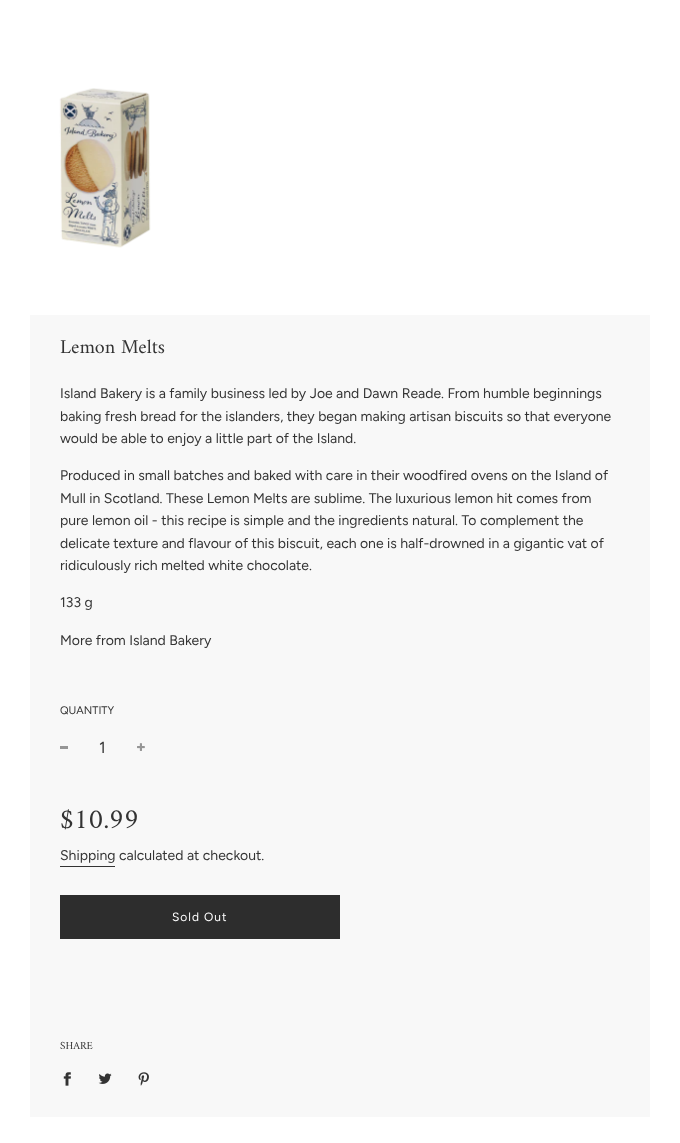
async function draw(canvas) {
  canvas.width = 680;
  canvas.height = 1143;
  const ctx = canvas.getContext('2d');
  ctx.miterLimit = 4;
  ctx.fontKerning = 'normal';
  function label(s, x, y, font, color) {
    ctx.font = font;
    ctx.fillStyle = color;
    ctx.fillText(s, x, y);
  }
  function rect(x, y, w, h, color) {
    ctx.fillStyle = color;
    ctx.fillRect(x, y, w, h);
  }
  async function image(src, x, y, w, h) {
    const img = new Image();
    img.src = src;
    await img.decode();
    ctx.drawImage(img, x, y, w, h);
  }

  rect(0, 0, 680, 1143, '#fff');
  await image('assets/img1.png', 59, 88, 92, 160);
  rect(30, 315, 620, 802, '#f8f8f8');
  label('Lemon Melts', 60, 353, '20px Amiri', '#333');
  label('Island Bakery is a family business led by Joe and Dawn Reade. From humble beginnings', 60, 398, '14px Figtree', '#333');
  label('baking fresh bread for the islanders, they began making artisan biscuits so that everyone', 60, 421, '14px Figtree', '#333');
  label('would be able to enjoy a little part of the Island.', 60, 443, '14px Figtree', '#333');
  label('Produced in small batches and baked with care in their woodfired ovens on the Island of', 60, 480, '14px Figtree', '#333');
  label('Mull in Scotland. These Lemon Melts are sublime. The luxurious lemon hit comes from', 60, 503, '14px Figtree', '#333');
  label('pure lemon oil - this recipe is simple and the ingredients natural. To complement the', 60, 525, '14px Figtree', '#333');
  label('delicate texture and flavour of this biscuit, each one is half-drowned in a gigantic vat of', 60, 548, '14px Figtree', '#333');
  label('ridiculously rich melted white chocolate.', 60, 570, '14px Figtree', '#333');
  label('133 g', 60, 607, '14px Figtree', '#333');
  label('More from Island Bakery', 60, 645, '14px Figtree', '#333');
  label('QUANTITY', 60, 714, '11px Figtree', '#333');
  rect(60, 746, 8, 3, '#969696');
  label('1', 99, 753, '16px Figtree', '#333');
  await image('assets/img2.png', 137, 743, 8, 8);
  label('$10.99', 60, 828, '28px Amiri', '#333');
  label('Shipping calculated at checkout.', 60, 860, '14px Figtree', '#333');
  rect(60, 866, 55, 1, '#333');
  rect(60, 895, 280, 44, '#2d2d2d');
  ctx.letterSpacing = '1px';
  label('Sold Out', 172, 921, '12px Figtree', '#fff');
  ctx.letterSpacing = '0px';
  label('SHARE', 60, 1049, '11px Amiri', '#333');
  await image('assets/img3.png', 63, 1072, 8, 14);
  await image('assets/img4.png', 98, 1073, 14, 11);
  await image('assets/img5.png', 138, 1072, 11, 14);
}

draw(document.querySelector('canvas'));
